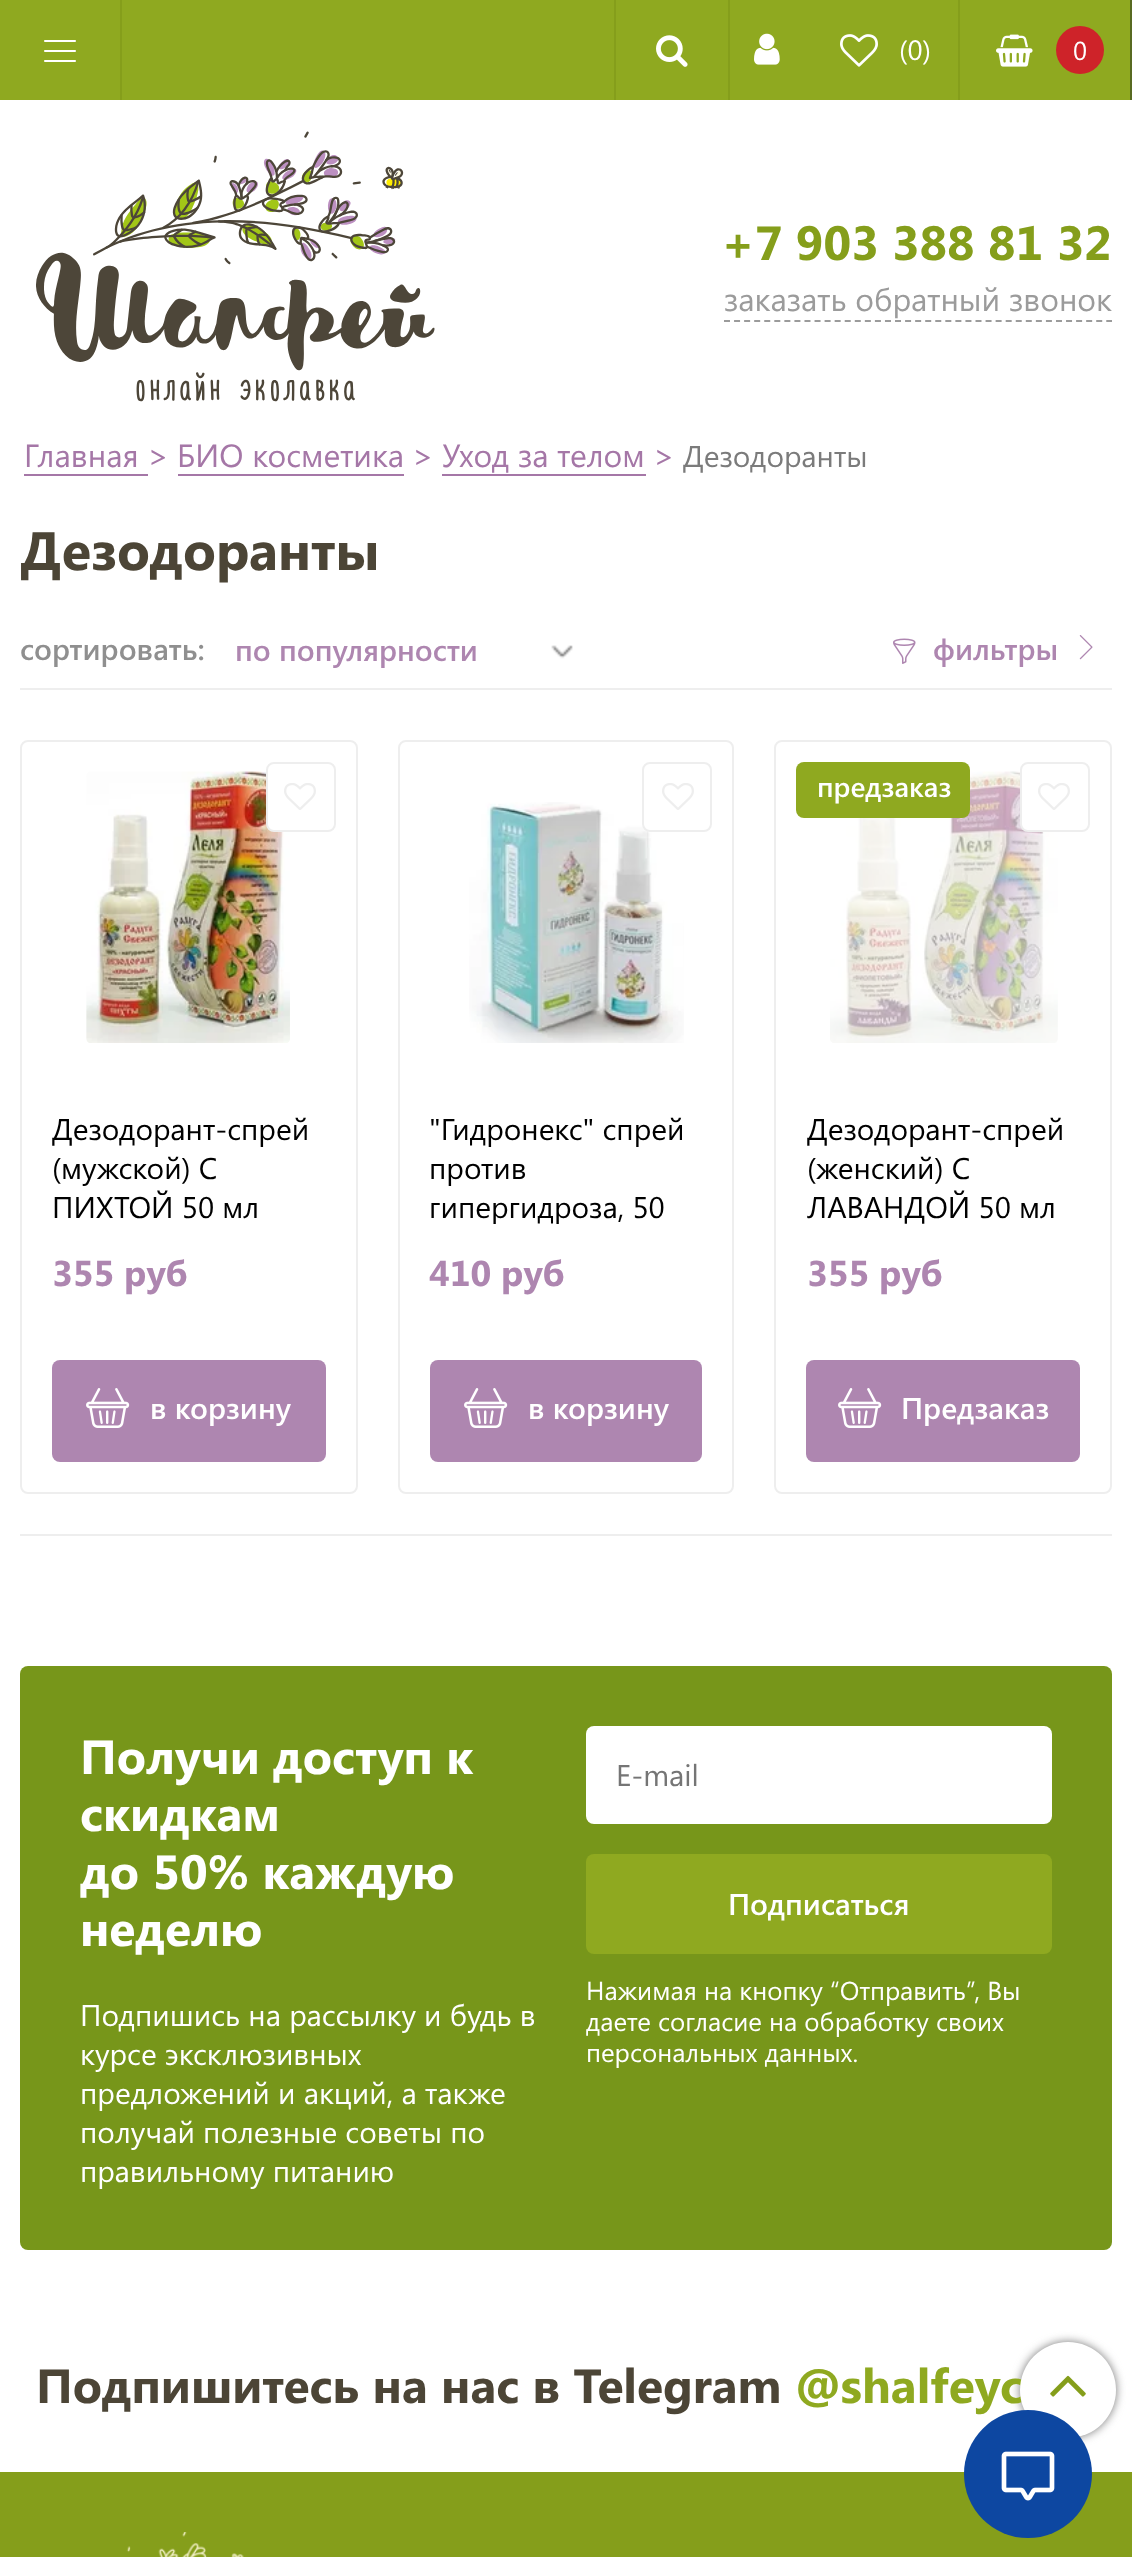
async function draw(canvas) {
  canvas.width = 1132;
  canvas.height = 2557;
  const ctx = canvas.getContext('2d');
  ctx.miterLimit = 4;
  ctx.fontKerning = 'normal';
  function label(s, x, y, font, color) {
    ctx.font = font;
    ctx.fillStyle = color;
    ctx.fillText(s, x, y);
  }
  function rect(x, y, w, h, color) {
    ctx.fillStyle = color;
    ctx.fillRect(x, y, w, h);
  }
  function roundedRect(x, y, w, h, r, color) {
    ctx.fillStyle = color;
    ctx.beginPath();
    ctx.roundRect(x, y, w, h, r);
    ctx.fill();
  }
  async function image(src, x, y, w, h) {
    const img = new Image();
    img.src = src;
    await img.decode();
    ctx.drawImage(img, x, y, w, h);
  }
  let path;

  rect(0, 0, 1132, 2557, '#fff');
  rect(0, 0, 1130, 100, '#8fa920');
  rect(120, 0, 2, 100, '#859e1b');
  await image('assets/img1.png', 44, 40, 32, 22);
  rect(728, 0, 2, 100, '#859e1b');
  rect(614, 0, 2, 100, '#859e1b');
  await image('assets/img2.png', 656, 35, 32, 32);
  await image('assets/img3.png', 754, 33, 26, 32);
  rect(958, 0, 2, 100, '#859e1b');
  await image('assets/img4.png', 840, 34, 38, 33);
  label('(0)', 899, 60, '28px Segoe UI', '#fff');
  rect(1130, 0, 2, 100, '#586a21');
  await image('assets/img5.png', 996, 34, 37, 33);
  ctx.fillStyle = '#ce2329';
  ctx.beginPath();
  ctx.arc(1080, 50, 24, 0, 2 * Math.PI);
  ctx.fill();
  label('0', 1073, 60, '26px Segoe UI', '#fff');
  await image('assets/img6.png', 36, 131, 399, 271);
  label('+7 903 388 81 32', 721, 260, 'bold 48px Segoe UI', '#859e1b');
  path = new Path2D('M724 321H1112');
  ctx.strokeStyle = '#9b9b9b';
  ctx.lineWidth = 2;
  ctx.setLineDash([6, 4.06]);
  ctx.stroke(path);
  label('заказать обратный звонок', 724, 311, '32px Segoe UI', '#9b9b9b');
  label('Главная >', 24, 467, '32px Segoe UI', '#a577a7');
  rect(24, 474, 124, 2, '#a577a7');
  label('БИО косметика', 177, 467, '32px Segoe UI', '#a577a7');
  rect(178, 474, 226, 2, '#a577a7');
  label('>', 412, 467, '32px Segoe UI', '#a577a7');
  label('Уход за телом', 442, 467, '32px Segoe UI', '#a577a7');
  rect(442, 474, 204, 2, '#a577a7');
  label('>', 653, 467, '32px Segoe UI', '#a577a7');
  label('Дезодоранты', 683, 467, '30px Segoe UI', '#7b7b7b');
  label('Дезодоранты', 20, 570, 'bold 54px Segoe UI', '#4c4536');
  rect(20, 688, 1092, 2, '#eee');
  label('сортировать:', 20, 660, '600 30px Segoe UI', '#8f8f8f');
  await image('assets/img7.png', 551, 645, 22, 14);
  label('по популярности', 235, 661, '600 30px Segoe UI', '#ae86b0');
  await image('assets/img8.png', 893, 638, 23, 26);
  label('фильтры', 933, 660, '600 30px Segoe UI', '#ae86b0');
  await image('assets/img9.png', 1079, 635, 14, 25);
  ctx.beginPath();
  ctx.roundRect(21, 741, 336, 752, 7);
  ctx.strokeStyle = '#eee';
  ctx.setLineDash([]);
  ctx.stroke();
  await image('assets/img10.png', 86, 771, 204, 272);
  label('Дезодорант-спрей', 52, 1140, '30px Segoe UI', '#000');
  label('(мужской) С', 52, 1179, '30px Segoe UI', '#000');
  label('ПИХТОЙ 50 мл', 52, 1218, '30px Segoe UI', '#000');
  label('355 руб', 52, 1286, 'bold 36px Segoe UI', '#ae86b0');
  ctx.fillStyle = '#fff';
  ctx.beginPath();
  ctx.roundRect(267, 763, 68, 68, 7);
  ctx.fill();
  ctx.stroke();
  await image('assets/img11.png', 284, 783, 32, 27);
  roundedRect(52, 1360, 274, 102, 8, '#ae86b0');
  await image('assets/img12.png', 86, 1388, 44, 40);
  label('в корзину', 150, 1419, '600 30px Segoe UI', '#fff');
  ctx.beginPath();
  ctx.roundRect(399, 741, 334, 752, 7);
  ctx.stroke();
  await image('assets/img13.png', 469, 802, 215, 241);
  label('"Гидронекс" спрей', 429, 1140, '30px Segoe UI', '#000');
  label('против', 429, 1179, '30px Segoe UI', '#000');
  ctx.save();
  ctx.beginPath();
  ctx.rect(430, 1110, 272, 114);
  ctx.clip();
  label('гипергидроза, 50', 429, 1218, '30px Segoe UI', '#000');
  ctx.restore();
  label('410 руб', 429, 1286, 'bold 36px Segoe UI', '#ae86b0');
  ctx.fillStyle = '#fff';
  ctx.beginPath();
  ctx.roundRect(643, 763, 68, 68, 7);
  ctx.fill();
  ctx.stroke();
  await image('assets/img11.png', 662, 783, 32, 27);
  roundedRect(430, 1360, 272, 102, 8, '#ae86b0');
  await image('assets/img12.png', 464, 1388, 44, 40);
  label('в корзину', 528, 1419, '600 30px Segoe UI', '#fff');
  ctx.beginPath();
  ctx.roundRect(775, 741, 336, 752, 7);
  ctx.stroke();
  await image('assets/img14.png', 830, 771, 228, 272);
  roundedRect(796, 762, 174, 56, 8, '#8fa920');
  label('предзаказ', 817, 797, '600 28px Segoe UI', '#fff');
  label('Дезодорант-спрей', 807, 1140, '30px Segoe UI', '#000');
  label('(женский) С', 807, 1179, '30px Segoe UI', '#000');
  label('ЛАВАНДОЙ 50 мл', 807, 1218, '30px Segoe UI', '#000');
  label('355 руб', 807, 1286, 'bold 36px Segoe UI', '#ae86b0');
  ctx.fillStyle = '#fff';
  ctx.beginPath();
  ctx.roundRect(1021, 763, 68, 68, 7);
  ctx.fill();
  ctx.stroke();
  await image('assets/img11.png', 1038, 783, 32, 27);
  roundedRect(806, 1360, 274, 102, 8, '#ae86b0');
  await image('assets/img12.png', 838, 1388, 44, 40);
  label('Предзаказ', 901, 1419, '600 30px Segoe UI', '#fff');
  rect(20, 1534, 1092, 2, '#eee');
  roundedRect(20, 1666, 1092, 584, 8, '#77961a');
  label('Получи доступ к', 80, 1774, 'bold 48px Segoe UI', '#fff');
  label('скидкам', 80, 1831, 'bold 48px Segoe UI', '#fff');
  label('до 50% каждую', 80, 1889, 'bold 48px Segoe UI', '#fff');
  label('неделю', 80, 1946, 'bold 48px Segoe UI', '#fff');
  label('Подпишись на рассылку и будь в', 80, 2026, '30px Segoe UI', '#fff');
  label('курсе эксклюзивных', 80, 2065, '30px Segoe UI', '#fff');
  label('предложений и акций, а также', 80, 2104, '30px Segoe UI', '#fff');
  label('получай полезные советы по', 80, 2143, '30px Segoe UI', '#fff');
  label('правильному питанию', 80, 2182, '30px Segoe UI', '#fff');
  roundedRect(586, 1726, 466, 98, 8, '#fff');
  label('E-mail', 616, 1786, '30px Segoe UI', '#757575');
  roundedRect(586, 1854, 466, 100, 8, '#8fa920');
  label('Подписаться', 728, 1915, '600 30px Segoe UI', '#fff');
  label('Нажимая на кнопку “Отправить”, Вы', 586, 2000, '26px Segoe UI', '#fff');
  label('даете согласие на обработку своих', 586, 2031, '26px Segoe UI', '#fff');
  label('персональных данных.', 586, 2062, '26px Segoe UI', '#fff');
  rect(0, 2472, 1132, 85, '#859e1b');
  ctx.fillStyle = '#777';
  ctx.filter = 'blur(5px)';
  ctx.beginPath();
  ctx.roundRect(1020, 2342, 96, 96, 48);
  ctx.fill();
  ctx.filter = 'none';
  label('@shalfeyc', 795, 2403, 'bold 48px Segoe UI', '#8fa920');
  ctx.fillStyle = '#fff';
  ctx.beginPath();
  ctx.arc(1068, 2390, 48, 0, 2 * Math.PI);
  ctx.fill();
  await image('assets/img15.png', 1050, 2375, 36, 22);
  await image('assets/img16.png', 126, 2532, 118, 25);
  label('Подпишитесь на нас в Telegram', 36, 2403, 'bold 48px Segoe UI', '#4c4536');
  ctx.fillStyle = '#0d47a1';
  ctx.beginPath();
  ctx.arc(1028, 2474, 64, 0, 2 * Math.PI);
  ctx.fill();
  await image('assets/img17.png', 1001, 2451, 54, 50);
}

draw(document.querySelector('canvas'));
